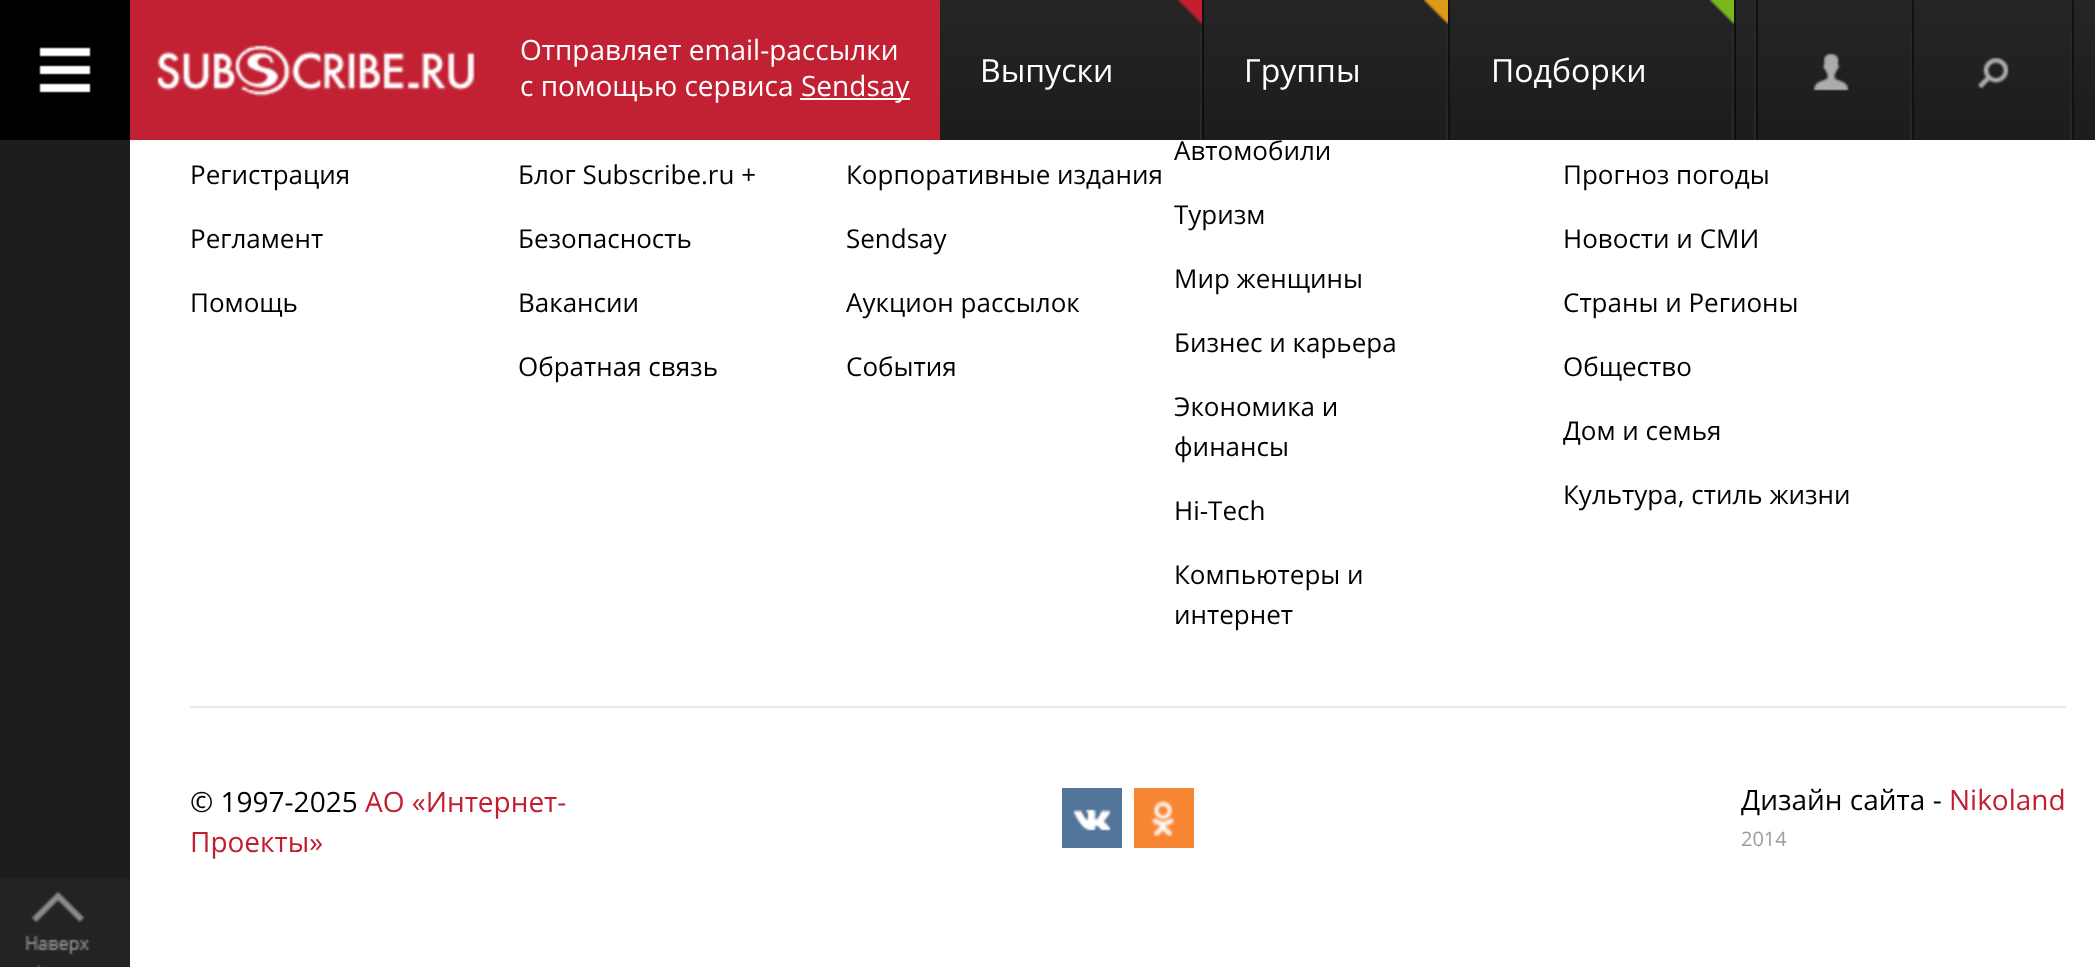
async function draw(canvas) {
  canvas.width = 2095;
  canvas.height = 967;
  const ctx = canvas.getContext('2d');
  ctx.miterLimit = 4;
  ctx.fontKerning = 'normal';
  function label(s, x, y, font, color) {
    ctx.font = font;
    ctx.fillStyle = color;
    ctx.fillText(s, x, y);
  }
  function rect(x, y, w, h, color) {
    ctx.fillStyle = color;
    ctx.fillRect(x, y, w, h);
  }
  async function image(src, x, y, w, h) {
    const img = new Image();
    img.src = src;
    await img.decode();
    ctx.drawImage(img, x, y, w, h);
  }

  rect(0, 0, 2095, 967, '#fff');
  await image('assets/img1.png', 940, 0, 1155, 140);
  rect(0, 0, 130, 140, '#000');
  await image('assets/img2.png', 39, 47, 52, 46);
  rect(130, 0, 810, 140, '#c12133');
  await image('assets/img3.png', 157, 45, 318, 52);
  label('Отправляет email-рассылки', 520, 60, '28px Open Sans', '#fff');
  label('с помощью сервиса', 520, 96, '28px Open Sans', '#fff');
  rect(800, 98, 110, 2, '#fff');
  label('Sendsay', 801, 96, '28px Open Sans', '#fff');
  await image('assets/img4.png', 1200, 0, 4, 140);
  await image('assets/img5.png', 1178, 0, 24, 25);
  label('Выпуски', 980, 82, '32px Open Sans', '#fff');
  await image('assets/img4.png', 1446, 0, 4, 140);
  await image('assets/img6.png', 1424, 0, 24, 25);
  label('Группы', 1244, 82, '32px Open Sans', '#fff');
  await image('assets/img4.png', 1732, 0, 4, 140);
  await image('assets/img7.png', 1710, 0, 24, 25);
  label('Подборки', 1491, 82, '32px Open Sans', '#fff');
  await image('assets/img4.png', 1754, 0, 4, 140);
  await image('assets/img4.png', 1910, 0, 4, 140);
  await image('assets/img8.png', 1813, 53, 36, 38);
  await image('assets/img4.png', 2070, 0, 4, 140);
  await image('assets/img9.png', 1977, 57, 32, 32);
  rect(0, 140, 130, 738, '#1d1d1d');
  label('Регистрация', 190, 184, '26px Open Sans', '#000');
  label('Регламент', 190, 248, '26px Open Sans', '#000');
  label('Помощь', 190, 312, '26px Open Sans', '#000');
  label('Блог Subscribe.ru +', 518, 184, '26px Open Sans', '#000');
  label('Безопасность', 518, 248, '26px Open Sans', '#000');
  label('Вакансии', 518, 312, '26px Open Sans', '#000');
  label('Обратная связь', 518, 376, '26px Open Sans', '#000');
  label('Корпоративные издания', 846, 184, '26px Open Sans', '#000');
  label('Sendsay', 846, 248, '26px Open Sans', '#000');
  label('Аукцион рассылок', 846, 312, '26px Open Sans', '#000');
  label('События', 846, 376, '26px Open Sans', '#000');
  label('Автомобили', 1174, 160, '26px Open Sans', '#000');
  label('Туризм', 1174, 224, '26px Open Sans', '#000');
  label('Мир женщины', 1174, 288, '26px Open Sans', '#000');
  label('Бизнес и карьера', 1174, 352, '26px Open Sans', '#000');
  label('Экономика и', 1174, 416, '26px Open Sans', '#000');
  label('финансы', 1174, 456, '26px Open Sans', '#000');
  label('Hi-Tech', 1174, 520, '26px Open Sans', '#000');
  label('Компьютеры и', 1174, 584, '26px Open Sans', '#000');
  label('интернет', 1174, 624, '26px Open Sans', '#000');
  label('Прогноз погоды', 1563, 184, '26px Open Sans', '#000');
  label('Новости и СМИ', 1563, 248, '26px Open Sans', '#000');
  label('Страны и Регионы', 1563, 312, '26px Open Sans', '#000');
  label('Общество', 1563, 376, '26px Open Sans', '#000');
  label('Дом и семья', 1563, 440, '26px Open Sans', '#000');
  label('Культура, стиль жизни', 1563, 504, '26px Open Sans', '#000');
  rect(190, 706, 1876, 2, '#eaeaea');
  label('© 1997-2025', 190, 812, '28px Open Sans', '#000');
  label('АО «Интернет-', 365, 812, '28px Open Sans', '#c31e2f');
  label('Проекты»', 190, 852, '28px Open Sans', '#c31e2f');
  rect(1062, 788, 60, 60, '#527498');
  await image('assets/img10.png', 1073, 809, 38, 22);
  rect(1134, 788, 60, 60, '#f68634');
  await image('assets/img11.png', 1150, 799, 25, 38);
  label('Дизайн сайта -', 1741, 810, '28px Open Sans', '#000');
  label('Nikoland', 1949, 810, '28px Open Sans', '#c31e2f');
  label('2014', 1741, 846, '20px Open Sans', '#9c9c9c');
  rect(0, 878, 130, 89, '#232323');
  await image('assets/img12.png', 25, 891, 65, 76);
}

draw(document.querySelector('canvas'));
